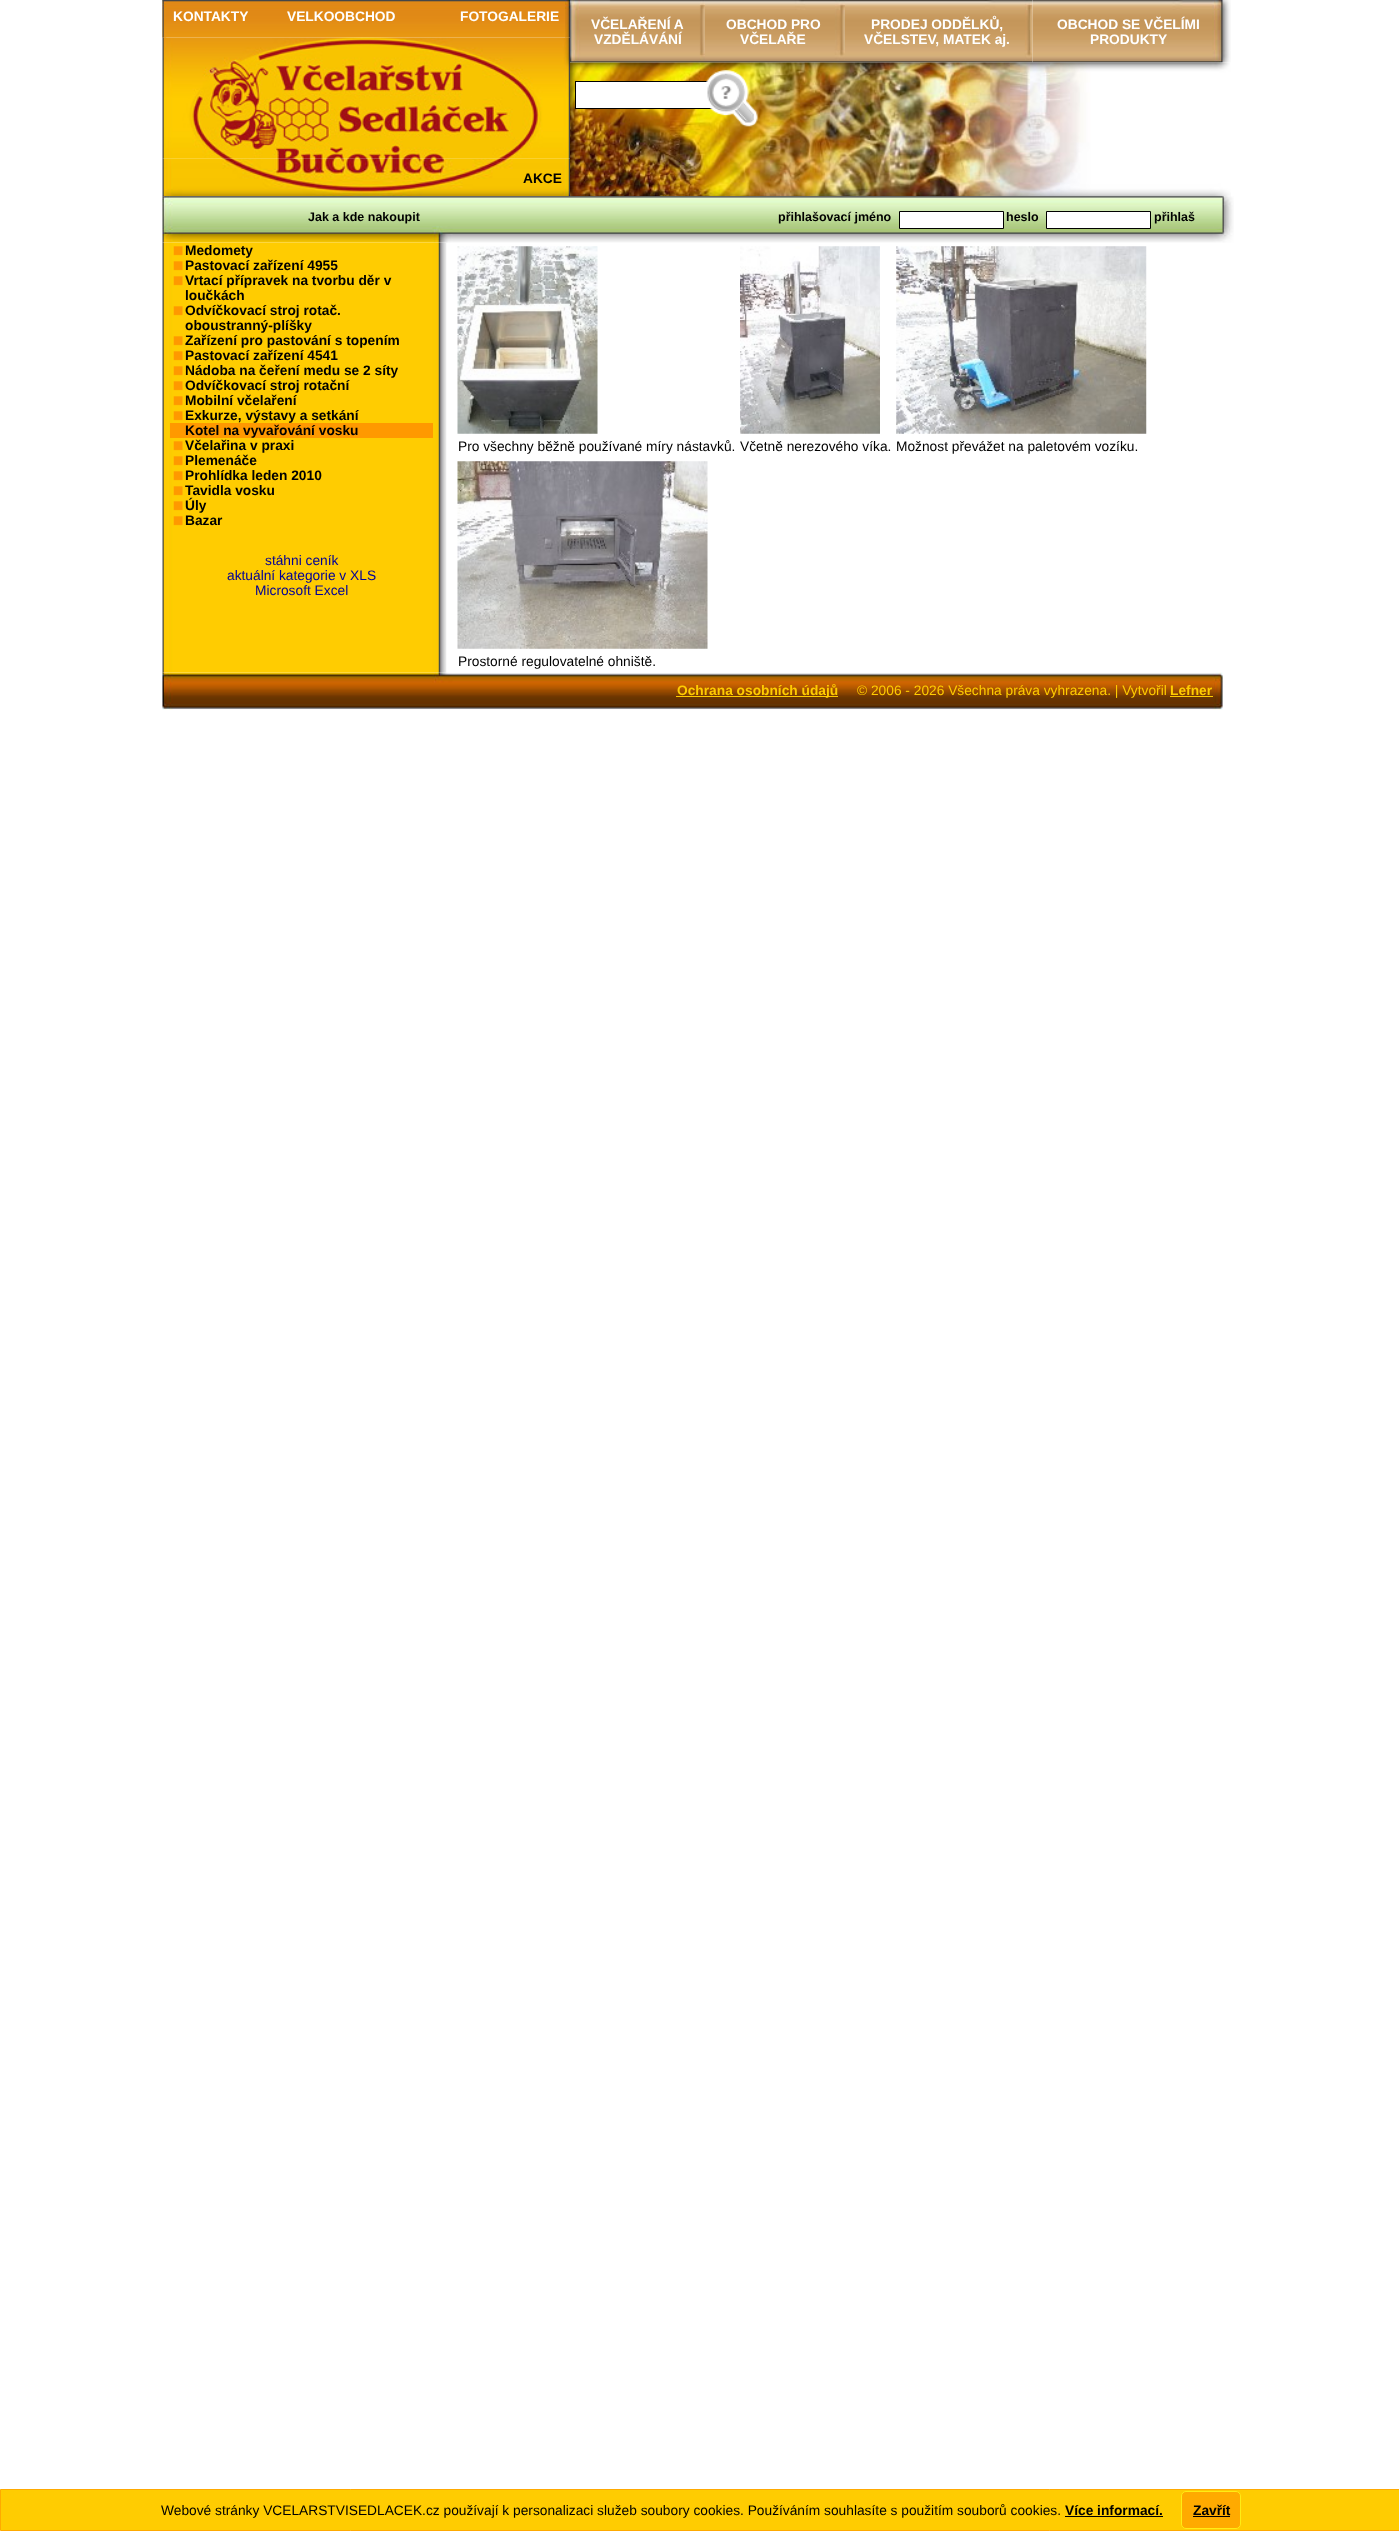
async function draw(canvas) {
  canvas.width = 1399;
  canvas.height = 2531;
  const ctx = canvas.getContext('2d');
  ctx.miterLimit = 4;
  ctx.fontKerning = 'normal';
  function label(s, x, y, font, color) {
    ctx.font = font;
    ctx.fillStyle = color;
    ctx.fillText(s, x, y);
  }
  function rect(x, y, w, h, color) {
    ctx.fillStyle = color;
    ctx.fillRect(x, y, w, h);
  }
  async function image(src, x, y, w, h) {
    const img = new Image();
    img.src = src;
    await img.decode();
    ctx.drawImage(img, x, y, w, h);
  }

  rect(0, 0, 1399, 2531, '#fff');
  await image('assets/img1.png', 162, 0, 408, 38);
  await image('assets/img2.png', 162, 0, 5, 38);
  label('KONTAKTY', 173, 21, 'bold 13.75px Liberation Sans', '#fff');
  label('VELKOOBCHOD', 287, 21, 'bold 13.75px Liberation Sans', '#fff');
  label('FOTOGALERIE', 460, 21, 'bold 13.75px Liberation Sans', '#fff');
  await image('assets/img3.png', 565, 0, 5, 38);
  await image('assets/img5.png', 162, 158, 408, 39);
  await image('assets/img4.png', 162, 37, 408, 122);
  label('AKCE', 523, 183, 'bold 13.75px Liberation Sans', '#000');
  await image('assets/img6.png', 570, 0, 135, 63);
  label('VČELAŘENÍ A', 591, 29, 'bold 13.75px Liberation Sans', '#fff');
  label('VZDĚLÁVÁNÍ', 594, 44, 'bold 13.75px Liberation Sans', '#fff');
  await image('assets/img7.png', 705, 0, 140, 63);
  label('OBCHOD PRO', 726, 29, 'bold 13.75px Liberation Sans', '#fff');
  label('VČELAŘE', 740, 44, 'bold 13.75px Liberation Sans', '#fff');
  await image('assets/img8.png', 845, 0, 188, 63);
  label('PRODEJ ODDĚLKŮ,', 871, 29, 'bold 13.75px Liberation Sans', '#fff');
  label('VČELSTEV, MATEK aj.', 864, 44, 'bold 13.75px Liberation Sans', '#fff');
  await image('assets/img9.png', 1032, 0, 199, 63);
  label('OBCHOD SE VČELÍMI', 1057, 29, 'bold 13.75px Liberation Sans', '#fff');
  label('PRODUKTY', 1090, 44, 'bold 13.75px Liberation Sans', '#fff');
  await image('assets/img10.png', 570, 62, 661, 135);
  rect(576, 82, 136, 26, '#fff');
  ctx.strokeStyle = '#000';
  ctx.strokeRect(575.5, 81.5, 154, 27);
  await image('assets/img11.png', 706, 69, 52, 58);
  await image('assets/img12.png', 162, 196, 1072, 47);
  label('Jak a kde nakoupit', 308, 221, 'bold 12.5px Liberation Sans', '#000');
  label('přihlašovací jméno', 778, 221, 'bold 12.5px Liberation Sans', '#000');
  ctx.fillStyle = '#fff';
  ctx.beginPath();
  ctx.rect(899.5, 211.5, 104, 17);
  ctx.fill();
  ctx.stroke();
  label('heslo', 1006, 221, 'bold 12.5px Liberation Sans', '#000');
  ctx.fillStyle = '#fff';
  ctx.beginPath();
  ctx.rect(1046.5, 211.5, 104, 17);
  ctx.fill();
  ctx.stroke();
  label('přihlaš', 1154, 221, 'bold 12.5px Liberation Sans', '#000');
  await image('assets/img13.png', 162, 242, 285, 431);
  await image('assets/img14.png', 173, 246, 10, 10);
  label('Medomety', 185, 255, 'bold 13.75px Liberation Sans', '#000');
  await image('assets/img14.png', 173, 261, 10, 10);
  label('Pastovací zařízení 4955', 185, 270, 'bold 13.75px Liberation Sans', '#000');
  await image('assets/img14.png', 173, 276, 10, 10);
  label('Vrtací přípravek na tvorbu děr v', 185, 285, 'bold 13.75px Liberation Sans', '#000');
  label('loučkách', 185, 300, 'bold 13.75px Liberation Sans', '#000');
  await image('assets/img14.png', 173, 306, 10, 10);
  label('Odvíčkovací stroj rotač.', 185, 315, 'bold 13.75px Liberation Sans', '#000');
  label('oboustranný-plíšky', 185, 330, 'bold 13.75px Liberation Sans', '#000');
  await image('assets/img14.png', 173, 336, 10, 10);
  label('Zařízení pro pastování s topením', 185, 345, 'bold 13.75px Liberation Sans', '#000');
  await image('assets/img14.png', 173, 351, 10, 10);
  label('Pastovací zařízení 4541', 185, 360, 'bold 13.75px Liberation Sans', '#000');
  await image('assets/img14.png', 173, 366, 10, 10);
  label('Nádoba na čeření medu se 2 síty', 185, 375, 'bold 13.75px Liberation Sans', '#000');
  await image('assets/img14.png', 173, 381, 10, 10);
  label('Odvíčkovací stroj rotační', 185, 390, 'bold 13.75px Liberation Sans', '#000');
  await image('assets/img14.png', 173, 396, 10, 10);
  label('Mobilní včelaření', 185, 405, 'bold 13.75px Liberation Sans', '#000');
  await image('assets/img14.png', 173, 411, 10, 10);
  label('Exkurze, výstavy a setkání', 185, 420, 'bold 13.75px Liberation Sans', '#000');
  rect(170, 423, 263, 15, '#f90');
  label('Kotel na vyvařování vosku', 185, 435, 'bold 13.75px Liberation Sans', '#000');
  await image('assets/img14.png', 173, 441, 10, 10);
  label('Včelařina v praxi', 185, 450, 'bold 13.75px Liberation Sans', '#000');
  await image('assets/img14.png', 173, 456, 10, 10);
  label('Plemenáče', 185, 465, 'bold 13.75px Liberation Sans', '#000');
  await image('assets/img14.png', 173, 471, 10, 10);
  label('Prohlídka leden 2010', 185, 480, 'bold 13.75px Liberation Sans', '#000');
  await image('assets/img14.png', 173, 486, 10, 10);
  label('Tavidla vosku', 185, 495, 'bold 13.75px Liberation Sans', '#000');
  await image('assets/img14.png', 173, 501, 10, 10);
  label('Úly', 185, 510, 'bold 13.75px Liberation Sans', '#000');
  await image('assets/img14.png', 173, 516, 10, 10);
  label('Bazar', 185, 525, 'bold 13.75px Liberation Sans', '#000');
  label('stáhni ceník', 265, 565, '13.75px Liberation Sans', '#009');
  label('aktuální kategorie v XLS', 227, 580, '13.75px Liberation Sans', '#009');
  label('Microsoft Excel', 255, 595, '13.75px Liberation Sans', '#009');
  await image('assets/img15.png', 457, 246, 141, 188);
  await image('assets/img16.png', 740, 246, 140, 188);
  await image('assets/img17.png', 896, 246, 251, 188);
  label('Pro všechny běžně používané míry nástavků.', 458, 451, '13.75px Liberation Sans', '#000');
  label('Včetně nerezového víka.', 740, 451, '13.75px Liberation Sans', '#000');
  label('Možnost převážet na paletovém vozíku.', 896, 451, '13.75px Liberation Sans', '#000');
  await image('assets/img18.png', 457, 461, 251, 188);
  label('Prostorné regulovatelné ohniště.', 458, 666, '13.75px Liberation Sans', '#000');
  await image('assets/img19.png', 162, 672, 1061, 38);
  rect(676, 696, 162, 1, '#ffcc01');
  label('Ochrana osobních údajů', 677, 695, 'bold 13.75px Liberation Sans', '#ffcc01');
  label('© 2006 - 2026 Všechna práva vyhrazena. | Vytvořil', 857, 695, '13.75px Liberation Sans', '#ffcc01');
  label('Lefner', 1170, 695, 'bold 13.75px Liberation Sans', '#ffcc01');
  rect(1170, 696, 43, 1, '#ffcc01');
  ctx.beginPath();
  ctx.rect(0.5, 2489.5, 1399, 41);
  ctx.fill();
  ctx.strokeStyle = '#fa0';
  ctx.stroke();
  label('Webové stránky VCELARSTVISEDLACEK.cz používají k personalizaci služeb soubory cookies. Používáním souhlasíte s použitím souborů cookies.', 161, 2515, '13.75px Liberation Sans', '#000');
  label('Více informací.', 1065, 2515, 'bold 13.75px Liberation Sans', '#000');
  rect(1065, 2516, 98, 1, '#000');
  ctx.fillStyle = '#fa0';
  ctx.beginPath();
  ctx.roundRect(1181.5, 2491.5, 59, 37, 4.5);
  ctx.fill();
  ctx.strokeStyle = '#ffec15';
  ctx.stroke();
  label('Zavřít', 1193, 2515, 'bold 13.75px Liberation Sans', '#000');
  rect(1193, 2516, 37, 1, '#000');
}

draw(document.querySelector('canvas'));
